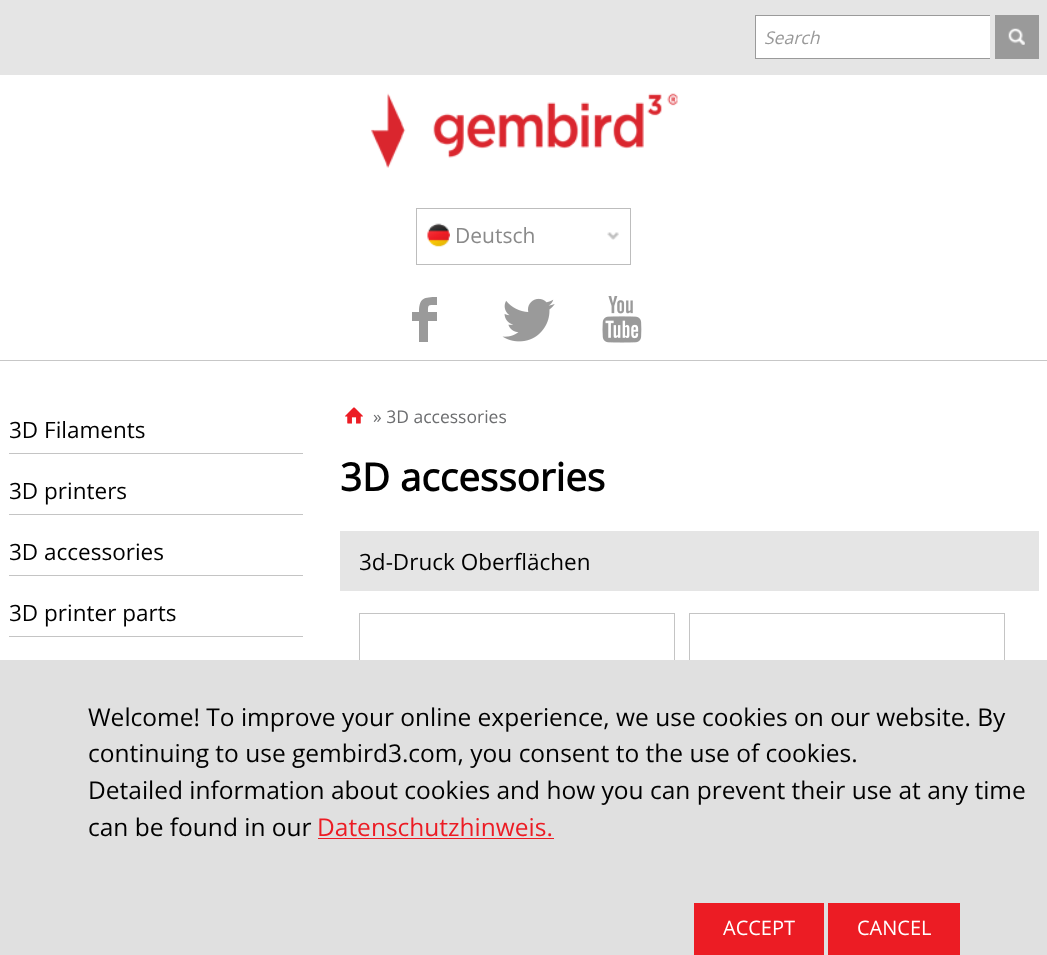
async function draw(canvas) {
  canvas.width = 1047;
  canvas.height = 955;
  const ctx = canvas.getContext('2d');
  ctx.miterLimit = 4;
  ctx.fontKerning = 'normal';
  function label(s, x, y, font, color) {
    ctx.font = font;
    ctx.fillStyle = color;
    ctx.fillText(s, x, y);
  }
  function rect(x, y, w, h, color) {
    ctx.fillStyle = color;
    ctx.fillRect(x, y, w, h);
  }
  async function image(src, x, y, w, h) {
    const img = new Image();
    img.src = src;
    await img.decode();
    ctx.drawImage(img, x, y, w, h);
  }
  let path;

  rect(0, 0, 1047, 955, '#fff');
  rect(0, 0, 1047, 75, '#e5e5e5');
  rect(756, 16, 234, 42, '#fff');
  rect(755, 15, 235, 1, '#9a9a9a');
  rect(755, 58, 235, 1, '#9a9a9a');
  rect(755, 15, 1, 44, '#9a9a9a');
  label('Search', 764, 44, 'italic 17.5px Open Sans', '#999');
  rect(995, 15, 44, 44, '#9a9a9a');
  await image('assets/img1.png', 1008, 28, 17, 17);
  rect(0, 360, 1047, 1, '#c7c7c7');
  await image('assets/img2.png', 371, 93, 307, 75);
  await image('assets/img3.png', 607, 232, 12, 8);
  ctx.strokeStyle = '#bdbdbd';
  ctx.strokeRect(416.5, 208.5, 214, 56);
  await image('assets/img4.png', 427, 223, 23, 24);
  label('Deutsch', 455, 243, '21px Open Sans', '#8a8a8a');
  ctx.fillStyle = '#9a9a9a';
  path = new Path2D('M412 321V312H419C419 298 424 297 437 297V305C428 305 428 304 428 312H437V321H428V342H419V321Z');
  ctx.fill(path);
  await image('assets/img5.png', 502, 298, 53, 44);
  await image('assets/img6.png', 602, 296, 40, 47);
  rect(9, 453, 294, 1, '#c4c4c4');
  label('3D Filaments', 9, 438, '22.5px Open Sans', '#000');
  rect(9, 514, 294, 1, '#c4c4c4');
  label('3D printers', 9, 499, '22.5px Open Sans', '#000');
  rect(9, 575, 294, 1, '#c4c4c4');
  label('3D accessories', 9, 560, '22.5px Open Sans', '#000');
  rect(9, 636, 294, 1, '#c4c4c4');
  label('3D printer parts', 9, 621, '22.5px Open Sans', '#000');
  await image('assets/img7.png', 345, 407, 18, 17);
  label('» 3D accessories', 373, 423, '17.5px Open Sans', '#6d6e70');
  label('3D accessories', 340, 491, 'bold 38.5px Open Sans', '#000');
  rect(340, 531, 699, 60, '#e5e5e5');
  label('3d-Druck Oberflächen', 359, 570, '22.5px Open Sans', '#000');
  ctx.strokeStyle = '#c4c4c4';
  ctx.strokeRect(359.5, 613.5, 315, 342);
  ctx.strokeRect(689.5, 613.5, 315, 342);
  rect(0, 660, 1047, 295, '#e0e0e0');
  label('Welcome! To improve your online experience, we use cookies on our website. By', 88, 726, '24.5px Open Sans', '#000');
  label('continuing to use gembird3.com, you consent to the use of cookies.', 88, 762, '24.5px Open Sans', '#000');
  label('Detailed information about cookies and how you can prevent their use at any time', 88, 799, '24.5px Open Sans', '#000');
  label('can be found in our', 88, 836, '24.5px Open Sans', '#000');
  label('Datenschutzhinweis.', 317, 836, '24.5px Open Sans', '#ec1c24');
  rect(318, 838, 236, 1, '#ec1c24');
  rect(694, 903, 130, 52, '#ec1c24');
  label('ACCEPT', 723, 935, '20px Open Sans', '#fff');
  rect(828, 903, 132, 52, '#ec1c24');
  label('CANCEL', 857, 935, '20px Open Sans', '#fff');
}

draw(document.querySelector('canvas'));
